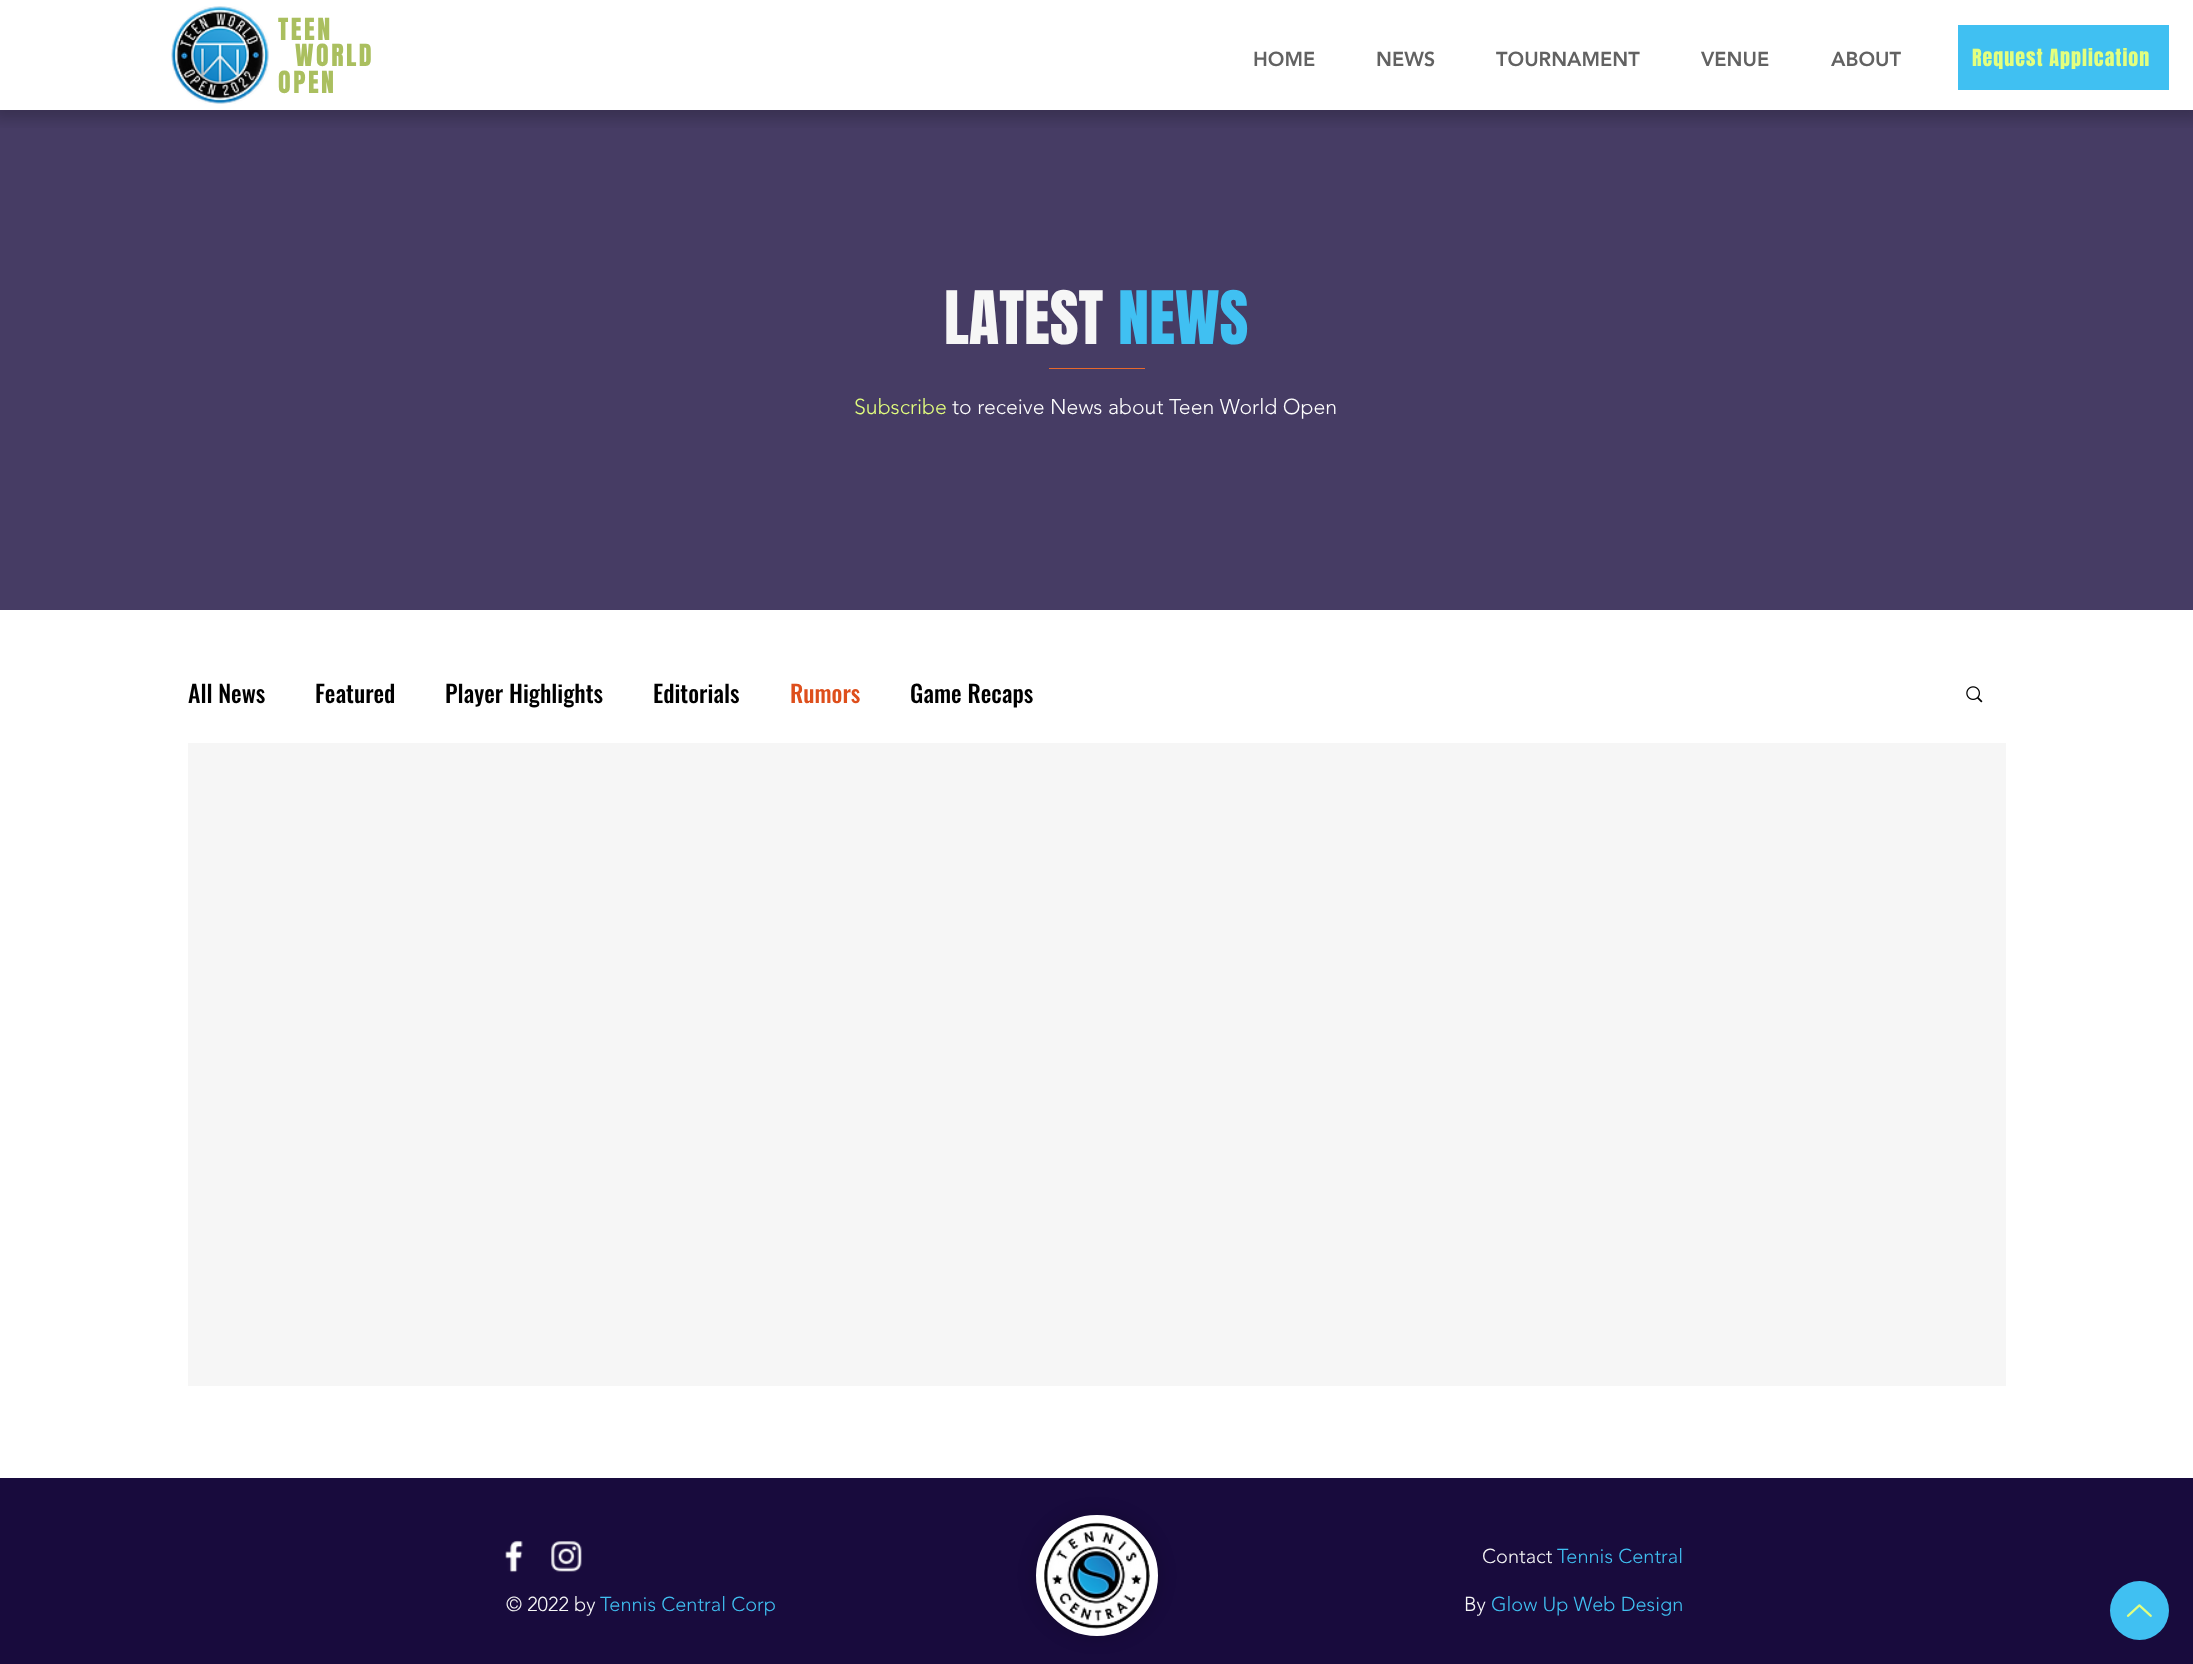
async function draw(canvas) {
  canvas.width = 2193;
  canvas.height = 1664;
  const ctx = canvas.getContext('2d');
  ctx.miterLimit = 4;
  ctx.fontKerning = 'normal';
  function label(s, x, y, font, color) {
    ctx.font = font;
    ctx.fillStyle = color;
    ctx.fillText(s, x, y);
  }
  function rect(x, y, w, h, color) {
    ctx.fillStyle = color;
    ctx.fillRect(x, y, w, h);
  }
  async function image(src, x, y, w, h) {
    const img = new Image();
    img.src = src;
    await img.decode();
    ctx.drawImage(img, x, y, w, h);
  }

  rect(0, 0, 2193, 1664, '#fff');
  rect(0, 110, 2193, 500, '#463c64');
  ctx.save();
  ctx.beginPath();
  ctx.rect(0, 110, 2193, 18);
  ctx.clip();
  ctx.fillStyle = '#00000030';
  ctx.filter = 'blur(7px)';
  ctx.beginPath();
  ctx.rect(-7, -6, 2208, 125);
  ctx.fill();
  ctx.filter = 'none';
  ctx.restore();
  await image('assets/img1.png', 171, 6, 98, 98);
  ctx.letterSpacing = '2.5px';
  label('TEEN', 278, 40, '26px Anton', '#aabf5f');
  label('WORLD', 295, 66, '26px Anton', '#aabf5f');
  label('OPEN', 278, 93, '26px Anton', '#aabf5f');
  ctx.letterSpacing = '0px';
  label('HOME', 1253, 66, '900 20px "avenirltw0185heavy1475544"', '#626262');
  label('NEWS', 1376, 66, '900 20px "avenirltw0185heavy1475544"', '#626262');
  label('TOURNAMENT', 1496, 66, '900 20px "avenirltw0185heavy1475544"', '#626262');
  label('VENUE', 1701, 66, '900 20px "avenirltw0185heavy1475544"', '#626262');
  label('ABOUT', 1831, 66, '900 20px "avenirltw0185heavy1475544"', '#626262');
  rect(1958, 25, 211, 65, '#40c0f2');
  ctx.letterSpacing = '1px';
  label('Request Application', 1972, 66, '20px Anton', '#e3ff7e');
  ctx.letterSpacing = '0px';
  label('LATEST', 944, 344, '62.5px Anton', '#f6f6f6');
  label('NEWS', 1118, 344, '62.5px Anton', '#40c0f2');
  rect(1049, 368, 96, 1, '#e7682c');
  label('Subscribe', 854, 414, '300 21.25px "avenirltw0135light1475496"', '#e3ff7e');
  label('to receive News about Teen World Open', 952, 414, '300 21.25px "avenirltw0135light1475496"', '#fff');
  rect(188, 743, 1818, 643, '#f6f6f6');
  label('All News', 188, 703, '500 23.75px Oswald', '#000');
  label('Featured', 315, 703, '500 23.75px Oswald', '#000');
  label('Player Highlights', 445, 703, '500 23.75px Oswald', '#000');
  label('Editorials', 653, 703, '500 23.75px Oswald', '#000');
  label('Rumors', 790, 703, '500 23.75px Oswald', '#de4f1c');
  label('Game Recaps', 910, 703, '500 23.75px Oswald', '#000');
  await image('assets/img2.png', 1966, 686, 17, 17);
  rect(0, 1478, 2193, 186, '#180b3d');
  await image('assets/img3.png', 505, 1540, 18, 33);
  await image('assets/img4.png', 551, 1541, 31, 31);
  ctx.fillStyle = '#00000033';
  ctx.filter = 'blur(9px)';
  ctx.beginPath();
  ctx.roundRect(1036, 1515, 122, 121, 60.5);
  ctx.fill();
  ctx.filter = 'none';
  ctx.fillStyle = '#fff';
  ctx.beginPath();
  ctx.roundRect(1040, 1519, 114, 113, 56.5);
  ctx.fill();
  ctx.strokeStyle = '#fff';
  ctx.lineWidth = 8;
  ctx.stroke();
  await image('assets/img5.png', 1044, 1522, 106, 107);
  label('Contact', 1482, 1563, '300 20px "avenirltw0135light1475496"', '#f6f6f6');
  label('Tennis Central', 1557, 1563, '300 20px "avenirltw0135light1475496"', '#40c0f2');
  label('© 2022 by', 506, 1611, '300 20px "avenirltw0135light1475496"', '#f6f6f6');
  label('Tennis Central Corp', 600, 1611, '300 20px "avenirltw0135light1475496"', '#40c0f2');
  label('By', 1464, 1611, '300 20px "avenirltw0135light1475496"', '#f6f6f6');
  label('Glow Up Web Design', 1491, 1611, '300 20px "avenirltw0135light1475496"', '#40c0f2');
  ctx.beginPath();
  ctx.arc(2139.5, 1610.5, 29.5, 0, 2 * Math.PI);
  ctx.fill();
  await image('assets/img6.png', 2126, 1604, 26, 13);
}

draw(document.querySelector('canvas'));
